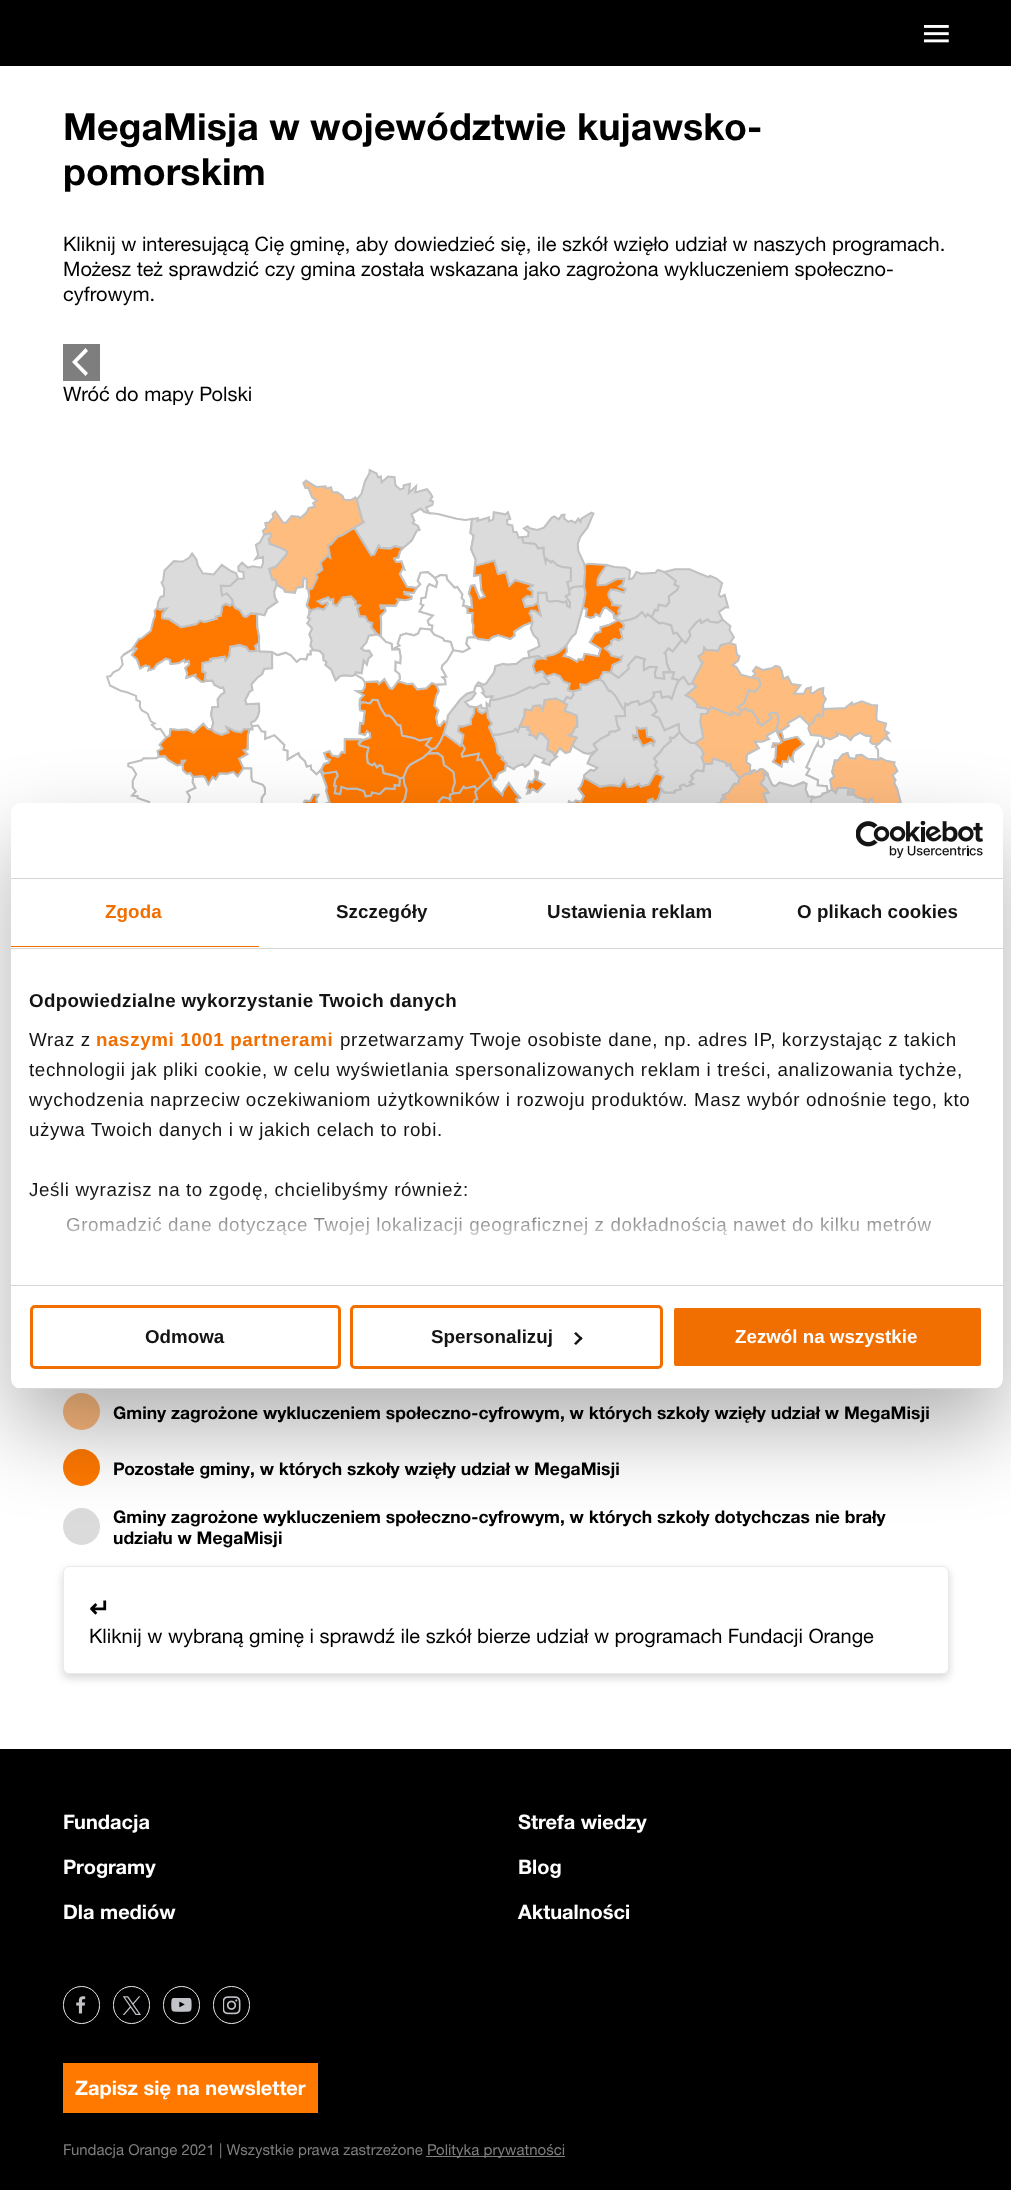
async function draw(canvas) {
  canvas.width = 1011;
  canvas.height = 2190;
  const ctx = canvas.getContext('2d');
  ctx.miterLimit = 4;
  ctx.fontKerning = 'normal';
  function label(s, x, y, font, color) {
    ctx.font = font;
    ctx.fillStyle = color;
    ctx.fillText(s, x, y);
  }
  function rect(x, y, w, h, color) {
    ctx.fillStyle = color;
    ctx.fillRect(x, y, w, h);
  }
  function roundedRect(x, y, w, h, r, color) {
    ctx.fillStyle = color;
    ctx.beginPath();
    ctx.roundRect(x, y, w, h, r);
    ctx.fill();
  }
  async function image(src, x, y, w, h) {
    const img = new Image();
    img.src = src;
    await img.decode();
    ctx.drawImage(img, x, y, w, h);
  }
  let gradient, path;

  rect(0, 0, 1011, 2190, '#fff');
  rect(0, 0, 1011, 66, '#000');
  await image('assets/img1.png', 924, 25, 25, 18);
  label('MegaMisja w województwie kujawsko-', 63, 140, 'bold 37.5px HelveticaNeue', '#000');
  label('pomorskim', 63, 185, 'bold 37.5px HelveticaNeue', '#000');
  label('Kliknij w interesującą Cię gminę, aby dowiedzieć się, ile szkół wzięło udział w naszych programach.', 63, 251, '20px HelveticaNeue', '#000');
  label('Możesz też sprawdzić czy gmina została wskazana jako zagrożona wykluczeniem społeczno-', 63, 276, '20px HelveticaNeue', '#000');
  label('cyfrowym.', 63, 301, '20px HelveticaNeue', '#000');
  rect(63, 344, 37, 37, '#7e7e7e');
  ctx.fillStyle = '#fff';
  path = new Path2D('M85.5 376L72 362L85.5 348L88 351L77 362L88 373Z');
  ctx.fill(path);
  label('Wróć do mapy Polski', 63, 401, '20px HelveticaNeue', '#000');
  await image('assets/img2.png', 106, 468, 796, 335);
  ctx.fillStyle = '#ffbc7f';
  ctx.beginPath();
  ctx.arc(81.5, 1411.5, 18.5, 0, 2 * Math.PI);
  ctx.fill();
  label('Gminy zagrożone wykluczeniem społeczno-cyfrowym, w których szkoły wzięły udział w MegaMisji', 113, 1419, 'bold 17.5px HelveticaNeue', '#000');
  ctx.fillStyle = '#ff7900';
  ctx.beginPath();
  ctx.arc(81.5, 1467.5, 18.5, 0, 2 * Math.PI);
  ctx.fill();
  label('Pozostałe gminy, w których szkoły wzięły udział w MegaMisji', 113, 1475, 'bold 17.5px HelveticaNeue', '#000');
  ctx.fillStyle = '#dbdbdb';
  ctx.beginPath();
  ctx.arc(81.5, 1526.5, 18.5, 0, 2 * Math.PI);
  ctx.fill();
  label('Gminy zagrożone wykluczeniem społeczno-cyfrowym, w których szkoły dotychczas nie brały', 113, 1523, 'bold 17.5px HelveticaNeue', '#000');
  label('udziału w MegaMisji', 113, 1544, 'bold 17.5px HelveticaNeue', '#000');
  ctx.fillStyle = '#00000029';
  ctx.filter = 'blur(4px)';
  ctx.beginPath();
  ctx.roundRect(63, 1570, 886, 108, 6);
  ctx.fill();
  ctx.filter = 'none';
  ctx.fillStyle = '#fff';
  ctx.beginPath();
  ctx.roundRect(63.5, 1566.5, 885, 107, 5.5);
  ctx.fill();
  ctx.strokeStyle = '#eaeaea';
  ctx.stroke();
  label('↵', 89, 1617, 'bold 25px DejaVu Sans', '#000');
  label('Kliknij w wybraną gminę i sprawdź ile szkół bierze udział w programach Fundacji Orange', 89, 1643, '20px HelveticaNeue', '#000');
  rect(0, 1749, 1011, 441, '#000');
  label('Fundacja', 63, 1829, 'bold 20px HelveticaNeue', '#fff');
  label('Strefa wiedzy', 518, 1829, 'bold 20px HelveticaNeue', '#fff');
  label('Programy', 63, 1874, 'bold 20px HelveticaNeue', '#fff');
  label('Blog', 518, 1874, 'bold 20px HelveticaNeue', '#fff');
  label('Dla mediów', 63, 1919, 'bold 20px HelveticaNeue', '#fff');
  label('Aktualności', 518, 1919, 'bold 20px HelveticaNeue', '#fff');
  ctx.beginPath();
  ctx.roundRect(63.5, 1986.5, 36, 37, 18);
  ctx.stroke();
  await image('assets/img3.png', 76, 1996, 10, 18);
  ctx.beginPath();
  ctx.roundRect(113.5, 1986.5, 36, 37, 18);
  ctx.stroke();
  await image('assets/img4.png', 123, 1996, 18, 19);
  ctx.beginPath();
  ctx.roundRect(163.5, 1986.5, 36, 37, 18);
  ctx.stroke();
  await image('assets/img5.png', 171, 1998, 21, 14);
  ctx.beginPath();
  ctx.roundRect(213.5, 1986.5, 36, 37, 18);
  ctx.stroke();
  await image('assets/img6.png', 223, 1996, 18, 19);
  rect(63, 2063, 255, 50, '#ff7900');
  label('Zapisz się na newsletter', 75, 2095, 'bold 20px HelveticaNeue', '#fff');
  label('Fundacja Orange 2021 | Wszystkie prawa zastrzeżone', 63, 2155, '15px HelveticaNeue', '#7e7e7e');
  rect(426, 2156, 139, 1, '#7e7e7e');
  label('Polityka prywatności', 427, 2155, '15px HelveticaNeue', '#7e7e7e');
  ctx.fillStyle = '#0000004d';
  ctx.filter = 'blur(42.5px)';
  ctx.beginPath();
  ctx.roundRect(11, 843, 992, 586, 10);
  ctx.fill();
  ctx.filter = 'none';
  roundedRect(11, 803, 992, 586, 10, '#fff');
  rect(11, 878, 992, 1, '#d6d6d6');
  await image('assets/img7.png', 856, 821, 127, 37);
  rect(11, 948, 992, 1, '#d6d6d6');
  rect(11, 946, 248, 1, '#f16e00');
  ctx.letterSpacing = '0.1px';
  label('Zgoda', 105, 918, 'bold 18.75px Liberation Sans', '#f16e00');
  label('Szczegóły', 336, 918, 'bold 18.75px Liberation Sans', '#141414');
  label('Ustawienia reklam', 547, 918, 'bold 18.75px Liberation Sans', '#141414');
  label('O plikach cookies', 797, 918, 'bold 18.75px Liberation Sans', '#141414');
  rect(11, 1285, 992, 1, '#d6d6d6');
  ctx.letterSpacing = '0.3px';
  label('Odpowiedzialne wykorzystanie Twoich danych', 29, 1007, 'bold 18.75px Liberation Sans', '#141414');
  ctx.letterSpacing = '0.62px';
  label('Wraz z', 29, 1046, '18.75px Liberation Sans', '#141414');
  label('naszymi 1001 partnerami', 96, 1046, 'bold 18.75px Liberation Sans', '#f16e00');
  label('przetwarzamy Twoje osobiste dane, np. adres IP, korzystając z takich', 340, 1046, '18.75px Liberation Sans', '#141414');
  label('technologii jak pliki cookie, w celu wyświetlania spersonalizowanych reklam i treści, analizowania tychże,', 29, 1076, '18.75px Liberation Sans', '#141414');
  label('wychodzenia naprzeciw oczekiwaniom użytkowników i rozwoju produktów. Masz wybór odnośnie tego, kto', 29, 1106, '18.75px Liberation Sans', '#141414');
  label('używa Twoich danych i w jakich celach to robi.', 29, 1136, '18.75px Liberation Sans', '#141414');
  label('Jeśli wyrazisz na to zgodę, chcielibyśmy również:', 29, 1196, '18.75px Liberation Sans', '#141414');
  label('Gromadzić dane dotyczące Twojej lokalizacji geograficznej z dokładnością nawet do kilku metrów', 66, 1231, '18.75px Liberation Sans', '#141414');
  gradient = ctx.createLinearGradient(498, 1284, 498, 1191);
  gradient.addColorStop(0, '#fff');
  gradient.addColorStop(0.5, '#ffffffcc');
  gradient.addColorStop(1, '#ffffff00');
  ctx.fillStyle = gradient;
  ctx.fillRect(29, 1192, 903, 43);
  ctx.save();
  ctx.beginPath();
  ctx.roundRect(11, 803, 992, 586, 10);
  ctx.clip();
  rect(11, 1388, 992, 1, '#d6d6d6');
  ctx.restore();
  ctx.beginPath();
  ctx.roundRect(31.5, 1306.5, 308, 61, 3.5);
  ctx.strokeStyle = '#f16e00';
  ctx.lineWidth = 3;
  ctx.stroke();
  ctx.letterSpacing = '0px';
  label('Odmowa', 145, 1343, 'bold 18.75px Liberation Sans', '#141414');
  ctx.beginPath();
  ctx.roundRect(351.5, 1306.5, 310, 61, 3.5);
  ctx.stroke();
  label('Spersonalizuj', 431, 1343, 'bold 18.75px Liberation Sans', '#141414');
  path = new Path2D('M576 1332L582.5 1338.5L581 1340L574 1333.5Z');
  ctx.fill(path);
  path = new Path2D('M581 1336.5L582.5 1338.5L576 1345L574 1343.5Z');
  ctx.fill(path);
  ctx.fillStyle = '#f16e00';
  ctx.beginPath();
  ctx.roundRect(672.5, 1306.5, 310, 61, 3.5);
  ctx.fill();
  ctx.strokeStyle = '#fff';
  ctx.stroke();
  label('Zezwól na wszystkie', 735, 1343, 'bold 18.75px Liberation Sans', '#fff');
}

draw(document.querySelector('canvas'));
